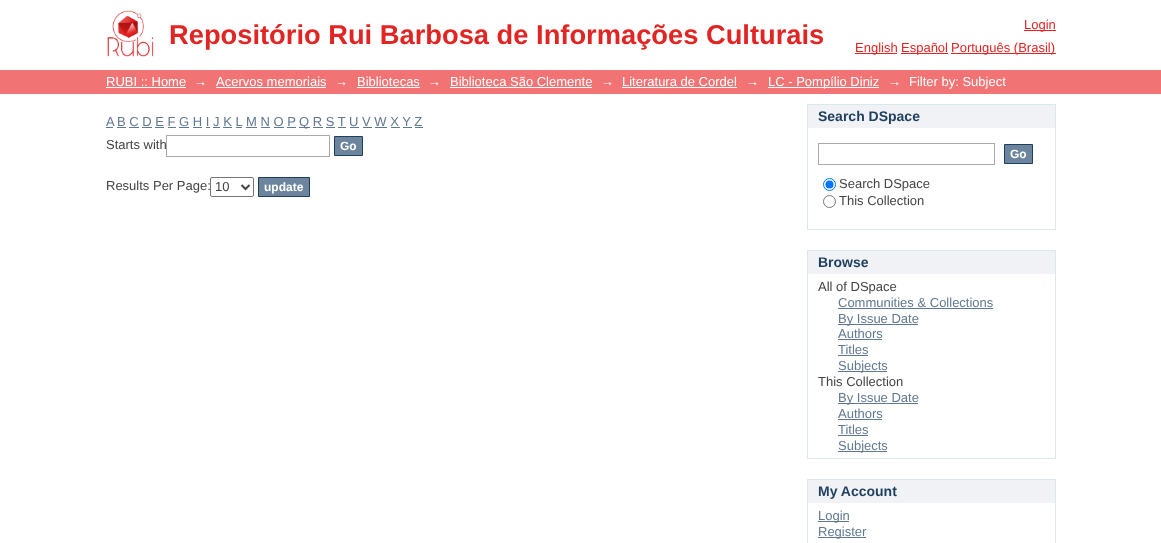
async function draw(canvas) {
  canvas.width = 1161;
  canvas.height = 543;
  const ctx = canvas.getContext('2d');
  ctx.miterLimit = 4;
  ctx.fontKerning = 'normal';
  function label(s, x, y, font, color) {
    ctx.font = font;
    ctx.fillStyle = color;
    ctx.fillText(s, x, y);
  }
  function rect(x, y, w, h, color) {
    ctx.fillStyle = color;
    ctx.fillRect(x, y, w, h);
  }
  async function image(src, x, y, w, h) {
    const img = new Image();
    img.src = src;
    await img.decode();
    ctx.drawImage(img, x, y, w, h);
  }
  let path;

  rect(0, 0, 1161, 543, '#fff');
  await image('assets/img1.png', 107, 10, 47, 47);
  label('Repositório Rui Barbosa de Informações Culturais', 169, 44, 'bold 27.3px Liberation Sans', '#e12523');
  rect(1024, 30, 32, 1, '#e12523');
  label('Login', 1024, 29, '13px Liberation Sans', '#e12523');
  rect(855, 53, 42, 1, '#e12523');
  label('English', 855, 52, '13px Liberation Sans', '#e12523');
  rect(901, 53, 47, 1, '#e12523');
  label('Español', 901, 52, '13px Liberation Sans', '#e12523');
  rect(951, 53, 105, 1, '#e12523');
  label('Português (Brasil)', 951, 52, '13px Liberation Sans', '#e12523');
  rect(0, 70, 1161, 24, '#f17374');
  label('RUBI :: Home', 106, 86, '13px Liberation Sans', '#fff');
  rect(106, 87, 80, 1, '#fff');
  label('→', 194, 86, '13px Liberation Sans', '#fff');
  label('Acervos memoriais', 216, 86, '13px Liberation Sans', '#fff');
  rect(216, 87, 110, 1, '#fff');
  label('→', 335, 86, '13px Liberation Sans', '#fff');
  label('Bibliotecas', 357, 86, '13px Liberation Sans', '#fff');
  rect(357, 87, 63, 1, '#fff');
  label('→', 428, 86, '13px Liberation Sans', '#fff');
  label('Biblioteca São Clemente', 450, 86, '13px Liberation Sans', '#fff');
  rect(450, 87, 142, 1, '#fff');
  label('→', 601, 86, '13px Liberation Sans', '#fff');
  label('Literatura de Cordel', 622, 86, '13px Liberation Sans', '#fff');
  rect(622, 87, 115, 1, '#fff');
  label('→', 746, 86, '13px Liberation Sans', '#fff');
  rect(768, 87, 111, 1, '#fff');
  label('LC - Pompílio Diniz', 768, 86, '13px Liberation Sans', '#fff');
  label('→', 888, 86, '13px Liberation Sans', '#fff');
  label('Filter by: Subject', 909, 86, '13px Liberation Sans', '#fff');
  label('A', 106, 126, '13px Liberation Sans', '#607890');
  rect(106, 127, 7, 1, '#607890');
  label('B C D E F G H I J K L', 117, 126, '13px Liberation Sans', '#607890');
  rect(117, 127, 9, 1, '#607890');
  label('M N O P', 246, 126, '13px Liberation Sans', '#607890');
  rect(246, 127, 11, 1, '#607890');
  rect(299, 127, 11, 1, '#607890');
  label('Q R S T U V W X Y Z', 299, 126, '13px Liberation Sans', '#607890');
  rect(129, 127, 10, 1, '#607890');
  rect(142, 127, 10, 1, '#607890');
  rect(155, 127, 9, 1, '#607890');
  rect(168, 127, 8, 1, '#607890');
  rect(179, 127, 10, 1, '#607890');
  rect(193, 127, 9, 1, '#607890');
  rect(206, 127, 4, 1, '#607890');
  rect(213, 127, 7, 1, '#607890');
  rect(223, 127, 9, 1, '#607890');
  rect(236, 127, 6, 1, '#607890');
  rect(261, 127, 9, 1, '#607890');
  rect(274, 127, 10, 1, '#607890');
  rect(287, 127, 9, 1, '#607890');
  rect(313, 127, 10, 1, '#607890');
  rect(326, 127, 9, 1, '#607890');
  rect(338, 127, 8, 1, '#607890');
  rect(350, 127, 9, 1, '#607890');
  rect(363, 127, 9, 1, '#607890');
  rect(375, 127, 12, 1, '#607890');
  rect(391, 127, 9, 1, '#607890');
  rect(403, 127, 9, 1, '#607890');
  rect(415, 127, 8, 1, '#607890');
  label('Starts with', 106, 149, '13px Liberation Sans', '#444');
  ctx.strokeStyle = '#aaa';
  ctx.strokeRect(166.5, 135.5, 163, 21);
  ctx.fillStyle = '#6d859c';
  ctx.beginPath();
  ctx.rect(334.5, 136.5, 28, 19);
  ctx.fill();
  ctx.strokeStyle = '#1f3f5e';
  ctx.stroke();
  label('Go', 340, 150, 'bold 12px Liberation Sans', '#fff');
  label('Results Per Page:', 106, 190, '13px Liberation Sans', '#444');
  ctx.beginPath();
  ctx.roundRect(210.5, 177.5, 43, 19, 1.5);
  ctx.strokeStyle = '#767676';
  ctx.stroke();
  path = new Path2D('M241.5 185L245.5 189L249.5 185');
  ctx.strokeStyle = '#444';
  ctx.lineWidth = 2;
  ctx.stroke(path);
  label('10', 215, 191, '13px Liberation Sans', '#444');
  ctx.fillStyle = '#6d859c';
  ctx.beginPath();
  ctx.rect(258.5, 177.5, 51, 19);
  ctx.fill();
  ctx.strokeStyle = '#1f3f5e';
  ctx.lineWidth = 1;
  ctx.stroke();
  label('update', 264, 191, 'bold 12px Liberation Sans', '#fff');
  rect(808, 105, 247, 23, '#f0f2f5');
  rect(807, 104, 249, 1, '#d8e8eb');
  rect(1055, 104, 1, 126, '#d8e8eb');
  rect(807, 104, 1, 24, '#d8e8eb');
  label('Search DSpace', 818, 121, 'bold 14px Liberation Sans', '#1f3f5e');
  rect(807, 229, 249, 1, '#d8e8eb');
  rect(807, 128, 1, 102, '#d8e8eb');
  ctx.strokeStyle = '#aaa';
  ctx.strokeRect(818.5, 143.5, 176, 21);
  ctx.fillStyle = '#6d859c';
  ctx.beginPath();
  ctx.rect(1004.5, 144.5, 28, 19);
  ctx.fill();
  ctx.strokeStyle = '#1f3f5e';
  ctx.stroke();
  label('Go', 1010, 158, 'bold 12px Liberation Sans', '#fff');
  ctx.beginPath();
  ctx.arc(829.5, 184.5, 6, 0, 2 * Math.PI);
  ctx.strokeStyle = '#0075ff';
  ctx.stroke();
  ctx.fillStyle = '#0075ff';
  ctx.beginPath();
  ctx.arc(829.5, 184.5, 4, 0, 2 * Math.PI);
  ctx.fill();
  label('Search DSpace', 839, 188, '13px Liberation Sans', '#444');
  ctx.beginPath();
  ctx.arc(829.5, 201.5, 6, 0, 2 * Math.PI);
  ctx.strokeStyle = '#767676';
  ctx.stroke();
  label('This Collection', 839, 205, '13px Liberation Sans', '#444');
  rect(808, 251, 247, 23, '#f0f2f5');
  rect(807, 250, 249, 1, '#d8e8eb');
  rect(1055, 250, 1, 209, '#d8e8eb');
  rect(807, 250, 1, 24, '#d8e8eb');
  label('Browse', 818, 267, 'bold 14px Liberation Sans', '#1f3f5e');
  rect(807, 458, 249, 1, '#d8e8eb');
  rect(807, 274, 1, 185, '#d8e8eb');
  label('All of DSpace', 818, 291, '13px Liberation Sans', '#444');
  label('Communities & Collections', 838, 307, '13px Liberation Sans', '#607890');
  rect(838, 308, 155, 1, '#607890');
  rect(838, 324, 80, 1, '#607890');
  label('By Issue Date', 838, 323, '13px Liberation Sans', '#607890');
  label('Authors', 838, 338, '13px Liberation Sans', '#607890');
  rect(838, 339, 44, 1, '#607890');
  label('Titles', 838, 354, '13px Liberation Sans', '#607890');
  rect(838, 355, 30, 1, '#607890');
  rect(838, 371, 49, 1, '#607890');
  label('Subjects', 838, 370, '13px Liberation Sans', '#607890');
  label('This Collection', 818, 386, '13px Liberation Sans', '#444');
  rect(838, 403, 80, 1, '#607890');
  label('By Issue Date', 838, 402, '13px Liberation Sans', '#607890');
  label('Authors', 838, 418, '13px Liberation Sans', '#607890');
  rect(838, 419, 44, 1, '#607890');
  label('Titles', 838, 434, '13px Liberation Sans', '#607890');
  rect(838, 435, 30, 1, '#607890');
  rect(838, 451, 49, 1, '#607890');
  label('Subjects', 838, 450, '13px Liberation Sans', '#607890');
  rect(808, 480, 247, 23, '#f0f2f5');
  rect(807, 479, 249, 1, '#d8e8eb');
  rect(1055, 479, 1, 64, '#d8e8eb');
  rect(807, 479, 1, 64, '#d8e8eb');
  label('My Account', 818, 496, 'bold 14px Liberation Sans', '#1f3f5e');
  rect(818, 521, 31, 1, '#607890');
  label('Login', 818, 520, '13px Liberation Sans', '#607890');
  rect(818, 537, 48, 1, '#607890');
  label('Register', 818, 536, '13px Liberation Sans', '#607890');
}

draw(document.querySelector('canvas'));
